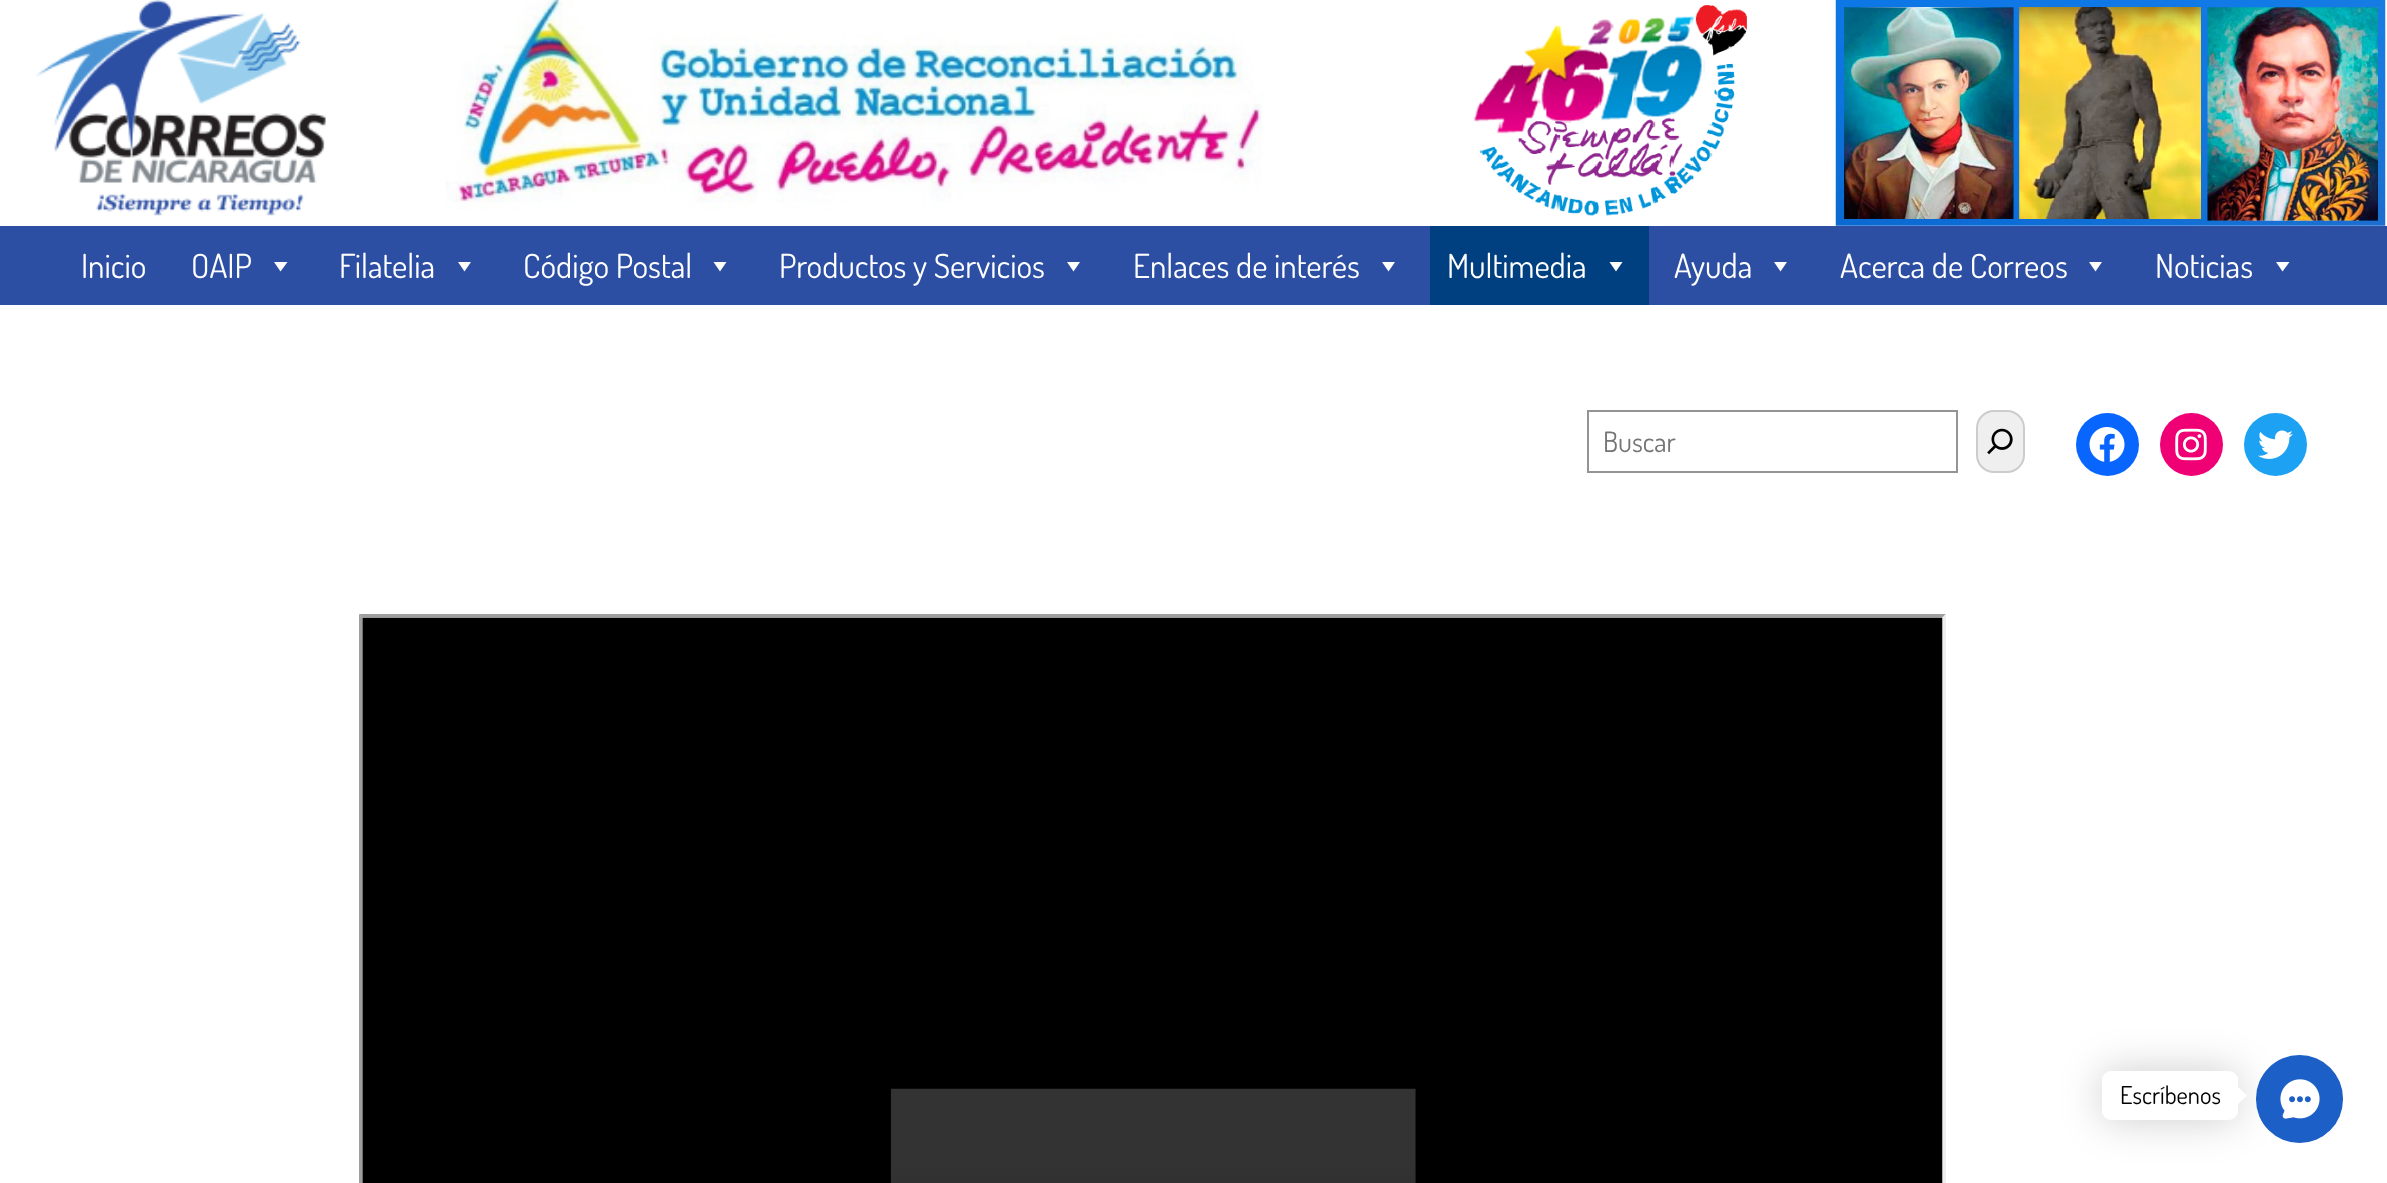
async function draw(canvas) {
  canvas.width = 2387;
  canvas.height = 1183;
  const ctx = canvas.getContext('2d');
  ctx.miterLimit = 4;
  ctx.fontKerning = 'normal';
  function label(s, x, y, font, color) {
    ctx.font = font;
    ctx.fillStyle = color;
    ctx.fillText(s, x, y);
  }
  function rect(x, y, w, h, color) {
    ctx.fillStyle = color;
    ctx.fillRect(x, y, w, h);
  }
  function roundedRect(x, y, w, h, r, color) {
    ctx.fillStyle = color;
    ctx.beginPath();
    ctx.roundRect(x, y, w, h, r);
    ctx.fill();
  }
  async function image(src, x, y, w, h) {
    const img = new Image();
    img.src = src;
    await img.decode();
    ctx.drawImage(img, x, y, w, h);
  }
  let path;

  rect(0, 0, 2387, 1183, '#fff');
  await image('assets/img1.png', 36, 0, 290, 216);
  await image('assets/img2.png', 445, 0, 819, 210);
  await image('assets/img3.png', 1473, 5, 274, 211);
  await image('assets/img4.png', 1835, 0, 551, 226);
  rect(0, 226, 2387, 79, '#2c4ea3');
  label('Inicio', 81, 278, '33.25px Dosis', '#fff');
  label('OAIP', 191, 278, '33.25px Dosis', '#fff');
  path = new Path2D('M287.5 262L280.5 271.5L274 262Z');
  ctx.fill(path);
  label('Filatelia', 339, 278, '33.25px Dosis', '#fff');
  path = new Path2D('M471 262L464.5 271.5L458 262Z');
  ctx.fill(path);
  label('Código Postal', 523, 278, '33.25px Dosis', '#fff');
  path = new Path2D('M726.5 262L720 271.5L713.5 262Z');
  ctx.fill(path);
  label('Productos y Servicios', 779, 278, '33.25px Dosis', '#fff');
  path = new Path2D('M1080 262L1073.5 271.5L1067 262Z');
  ctx.fill(path);
  label('Enlaces de interés', 1133, 278, '33.25px Dosis', '#fff');
  path = new Path2D('M1395 262L1388.5 271.5L1382 262Z');
  ctx.fill(path);
  rect(1430, 226, 219, 79, '#004080');
  label('Multimedia', 1447, 278, '33.25px Dosis', '#fff');
  path = new Path2D('M1622.5 262L1616 271.5L1609.5 262Z');
  ctx.fill(path);
  label('Ayuda', 1674, 278, '33.25px Dosis', '#fff');
  path = new Path2D('M1787 262L1780.5 271.5L1774 262Z');
  ctx.fill(path);
  label('Acerca de Correos', 1840, 278, '33.25px Dosis', '#fff');
  path = new Path2D('M2102 262L2095.5 271.5L2089 262Z');
  ctx.fill(path);
  label('Noticias', 2155, 278, '33.25px Dosis', '#fff');
  path = new Path2D('M2289.5 262L2282.5 271.5L2276 262Z');
  ctx.fill(path);
  ctx.strokeStyle = '#949494';
  ctx.lineWidth = 2;
  ctx.strokeRect(1588, 411, 369, 61);
  label('Buscar', 1603, 452, '28px Dosis', '#757575');
  ctx.fillStyle = '#efefef';
  ctx.beginPath();
  ctx.roundRect(1977, 411, 47, 61, 17);
  ctx.fill();
  ctx.strokeStyle = '#ccc';
  ctx.stroke();
  await image('assets/img5.png', 1987, 428, 26, 27);
  ctx.fillStyle = '#0866ff';
  ctx.beginPath();
  ctx.arc(2107.5, 444.5, 31.5, 0, 2 * Math.PI);
  ctx.fill();
  await image('assets/img6.png', 2089, 427, 36, 35);
  ctx.fillStyle = '#f00075';
  ctx.beginPath();
  ctx.arc(2191.5, 444.5, 31.5, 0, 2 * Math.PI);
  ctx.fill();
  await image('assets/img7.png', 2175, 428, 32, 33);
  ctx.fillStyle = '#1da1f2';
  ctx.beginPath();
  ctx.arc(2275.5, 444.5, 31.5, 0, 2 * Math.PI);
  ctx.fill();
  await image('assets/img8.png', 2258, 430, 35, 29);
  ctx.fillStyle = '#9f9f9f';
  path = new Path2D('M359 614H1946L1942 618H362Z');
  ctx.fill(path);
  ctx.fillStyle = '#eee';
  path = new Path2D('M1946 614V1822L1942 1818V618Z');
  ctx.fill(path);
  ctx.fillStyle = '#9f9f9f';
  path = new Path2D('M359 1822V614L362 618V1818Z');
  ctx.fill(path);
  await image('assets/img9.png', 362, 617, 1581, 566);
  ctx.fillStyle = '#00000033';
  ctx.filter = 'blur(21px)';
  ctx.beginPath();
  ctx.roundRect(2102, 1071, 136, 49, 9);
  ctx.fill();
  ctx.filter = 'none';
  roundedRect(2102, 1071, 136, 49, 9, '#fff');
  label('Escríbenos', 2120, 1104, '24.5px Dosis', '#000');
  ctx.fillStyle = '#fff';
  path = new Path2D('M2238 1104V1087L2247 1095.5Z');
  ctx.fill(path);
  roundedRect(2256, 1055, 87, 88, 43.5, '#1c5fc6');
  await image('assets/img10.png', 2280, 1079, 40, 40);
}

draw(document.querySelector('canvas'));
